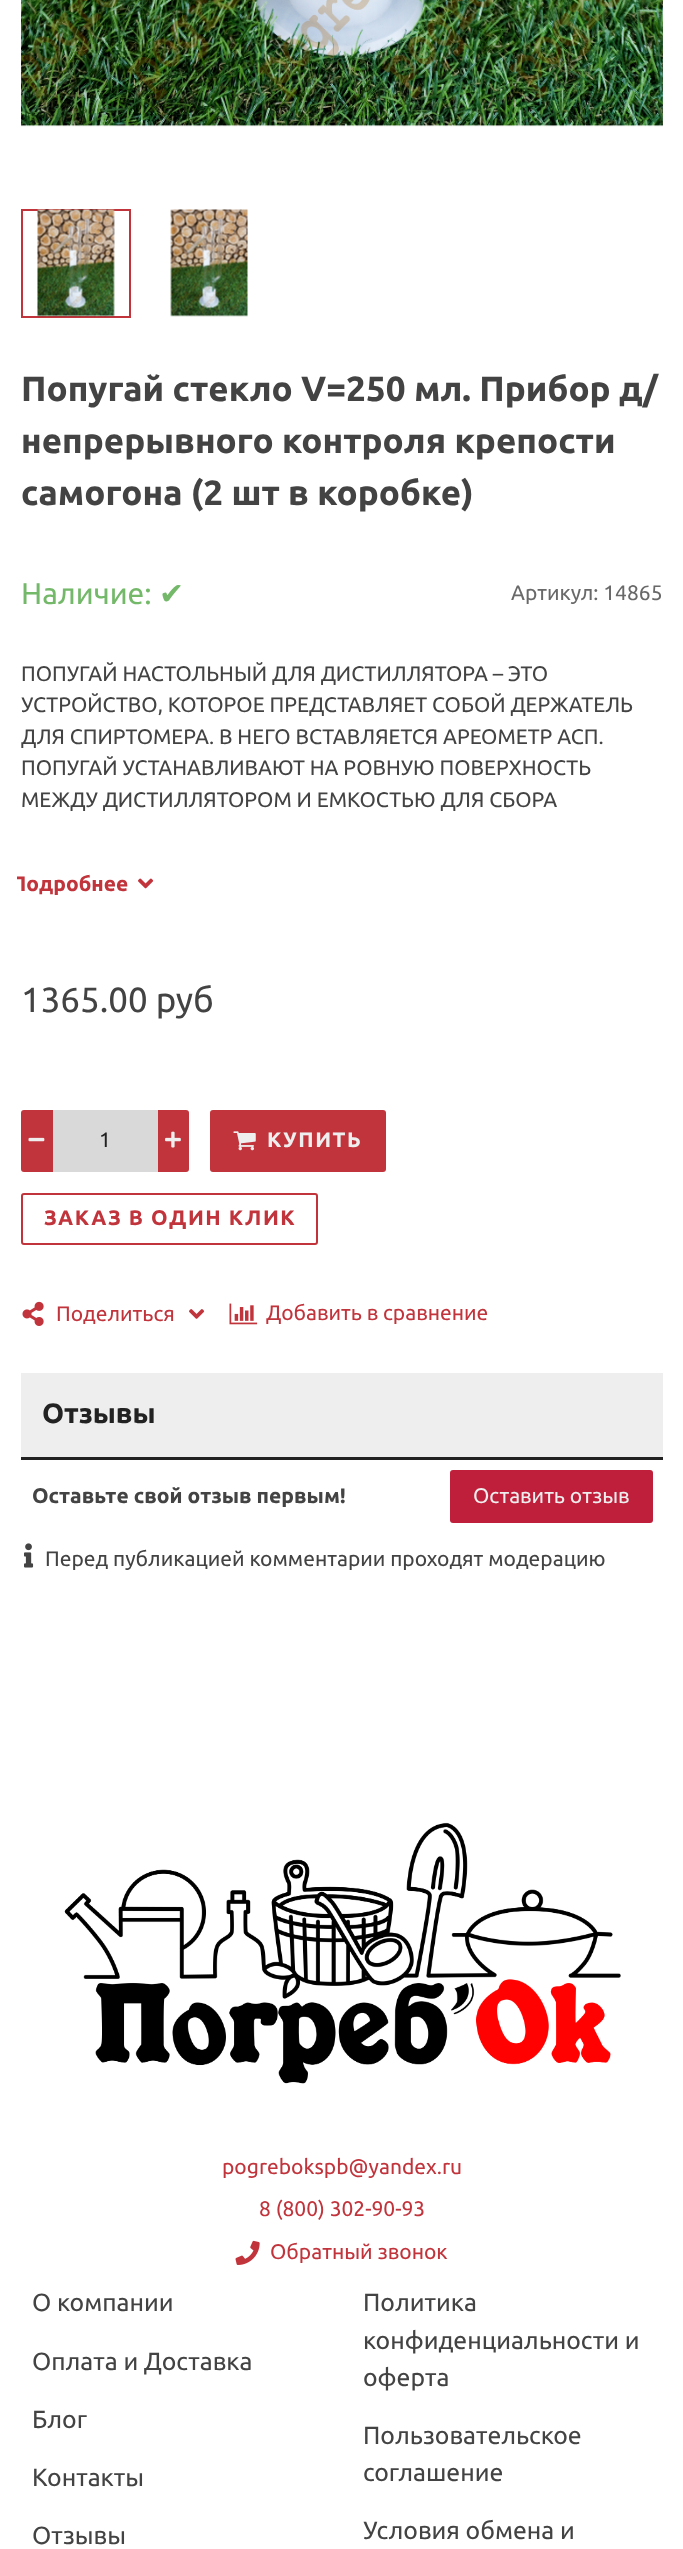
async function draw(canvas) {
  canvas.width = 683;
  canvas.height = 2549;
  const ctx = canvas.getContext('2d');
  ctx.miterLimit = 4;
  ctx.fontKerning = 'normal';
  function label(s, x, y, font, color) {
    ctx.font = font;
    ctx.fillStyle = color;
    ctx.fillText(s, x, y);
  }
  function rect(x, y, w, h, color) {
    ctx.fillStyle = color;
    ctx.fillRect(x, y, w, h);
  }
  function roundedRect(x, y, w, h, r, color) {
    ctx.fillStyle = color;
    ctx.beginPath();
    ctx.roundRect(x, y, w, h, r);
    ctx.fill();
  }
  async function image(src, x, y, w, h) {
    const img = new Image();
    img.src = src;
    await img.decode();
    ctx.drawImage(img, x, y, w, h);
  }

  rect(0, 0, 683, 2549, '#fff');
  await image('assets/img1.png', 21, 0, 642, 127);
  ctx.beginPath();
  ctx.rect(22, 210, 108, 107);
  ctx.strokeStyle = '#c1343c';
  ctx.lineWidth = 2;
  ctx.stroke();
  await image('assets/img2.png', 37, 209, 78, 108);
  await image('assets/img3.png', 170, 209, 78, 108);
  label('Попугай стекло V=250 мл. Прибор д/', 21, 401, 'bold 34.9px Ubuntu', '#434343');
  label('непрерывного контроля крепости', 21, 453, 'bold 34.9px Ubuntu', '#434343');
  label('самогона (2 шт в коробке)', 21, 505, 'bold 34.9px Ubuntu', '#434343');
  label('Наличие:', 21, 604, '30px Ubuntu', '#74b86a');
  label('✔', 159, 604, '30px DejaVu Sans', '#74b86a');
  label('Артикул: 14865', 511, 600, '21px Ubuntu', '#696969');
  label('ПОПУГАЙ НАСТОЛЬНЫЙ ДЛЯ ДИСТИЛЛЯТОРА – ЭТО', 21, 681, '21px Ubuntu', '#434343');
  label('УСТРОЙСТВО, КОТОРОЕ ПРЕДСТАВЛЯЕТ СОБОЙ ДЕРЖАТЕЛЬ', 21, 712, '21px Ubuntu', '#434343');
  label('ДЛЯ СПИРТОМЕРА. В НЕГО ВСТАВЛЯЕТСЯ АРЕОМЕТР АСП.', 21, 744, '21px Ubuntu', '#434343');
  label('ПОПУГАЙ УСТАНАВЛИВАЮТ НА РОВНУЮ ПОВЕРХНОСТЬ', 21, 775, '21px Ubuntu', '#434343');
  label('МЕЖДУ ДИСТИЛЛЯТОРОМ И ЕМКОСТЬЮ ДЛЯ СБОРА', 21, 807, '21px Ubuntu', '#434343');
  ctx.save();
  ctx.beginPath();
  ctx.rect(17, 848, 111, 73);
  ctx.clip();
  label('Подробнее', 11, 891, 'bold 21px Ubuntu', '#c1343c');
  ctx.restore();
  await image('assets/img4.png', 138, 878, 16, 11);
  label('1365.00 руб', 21, 1012, '34.9px Ubuntu', '#434343');
  ctx.fillStyle = '#c1343c';
  ctx.beginPath();
  ctx.roundRect(21, 1110, 32, 62, [3, 0, 0, 3]);
  ctx.fill();
  await image('assets/img5.png', 28, 1137, 17, 5);
  rect(53, 1110, 105, 62, '#d9d9d9');
  label('1', 99, 1147, '21px Ubuntu', '#222');
  ctx.fillStyle = '#c1343c';
  ctx.beginPath();
  ctx.roundRect(158, 1110, 31, 62, [0, 3, 3, 0]);
  ctx.fill();
  await image('assets/img6.png', 165, 1131, 16, 17);
  roundedRect(210, 1110, 176, 62, 3, '#c1343c');
  await image('assets/img7.png', 233, 1131, 23, 20);
  ctx.letterSpacing = '1.5px';
  label('КУПИТЬ', 267, 1147, 'bold 21px Ubuntu', '#eee');
  ctx.beginPath();
  ctx.roundRect(22, 1194, 295, 50, 2);
  ctx.stroke();
  label('ЗАКАЗ В ОДИН КЛИК', 44, 1225, 'bold 21px Ubuntu', '#c1343c');
  await image('assets/img8.png', 22, 1301, 22, 25);
  ctx.letterSpacing = '0px';
  label('Поделиться', 56, 1321, '21px Ubuntu', '#c1343c');
  await image('assets/img9.png', 189, 1309, 16, 10);
  await image('assets/img10.png', 229, 1303, 29, 22);
  label('Добавить в сравнение', 266, 1320, '21px Ubuntu', '#c1343c');
  rect(21, 1373, 642, 84, '#eee');
  rect(21, 1457, 642, 3, '#222');
  label('Отзывы', 42, 1423, 'bold 28px Ubuntu', '#222');
  label('Оставьте свой отзыв первым!', 32, 1503, 'bold 21px Ubuntu', '#434343');
  roundedRect(450, 1470, 203, 53, 3, '#c01f3c');
  label('Оставить отзыв', 473, 1503, '21px Ubuntu', '#eee');
  await image('assets/img11.png', 24, 1543, 10, 25);
  label('Перед публикацией комментарии проходят модерацию', 45, 1566, '21px Ubuntu', '#434343');
  await image('assets/img12.png', 64, 1822, 557, 262);
  label('pogrebokspb@yandex.ru', 222, 2174, '21px Ubuntu', '#c1343c');
  label('8 (800) 302-90-93', 259, 2216, '21px Ubuntu', '#c1343c');
  await image('assets/img13.png', 235, 2240, 25, 25);
  label('Обратный звонок', 270, 2259, '21px Ubuntu', '#c1343c');
  label('О компании', 32, 2311, '24.75px Ubuntu', '#434343');
  label('Оплата и Доставка', 32, 2370, '24.75px Ubuntu', '#434343');
  label('Блог', 32, 2428, '24.75px Ubuntu', '#434343');
  label('Контакты', 32, 2486, '24.75px Ubuntu', '#434343');
  label('Отзывы', 32, 2544, '24.75px Ubuntu', '#434343');
  label('Политика', 363, 2311, '24.75px Ubuntu', '#434343');
  label('конфиденциальности и', 363, 2349, '24.75px Ubuntu', '#434343');
  label('оферта', 363, 2386, '24.75px Ubuntu', '#434343');
  label('Пользовательское', 363, 2444, '24.75px Ubuntu', '#434343');
  label('соглашение', 363, 2481, '24.75px Ubuntu', '#434343');
  label('Условия обмена и', 363, 2539, '24.75px Ubuntu', '#434343');
}

draw(document.querySelector('canvas'));
